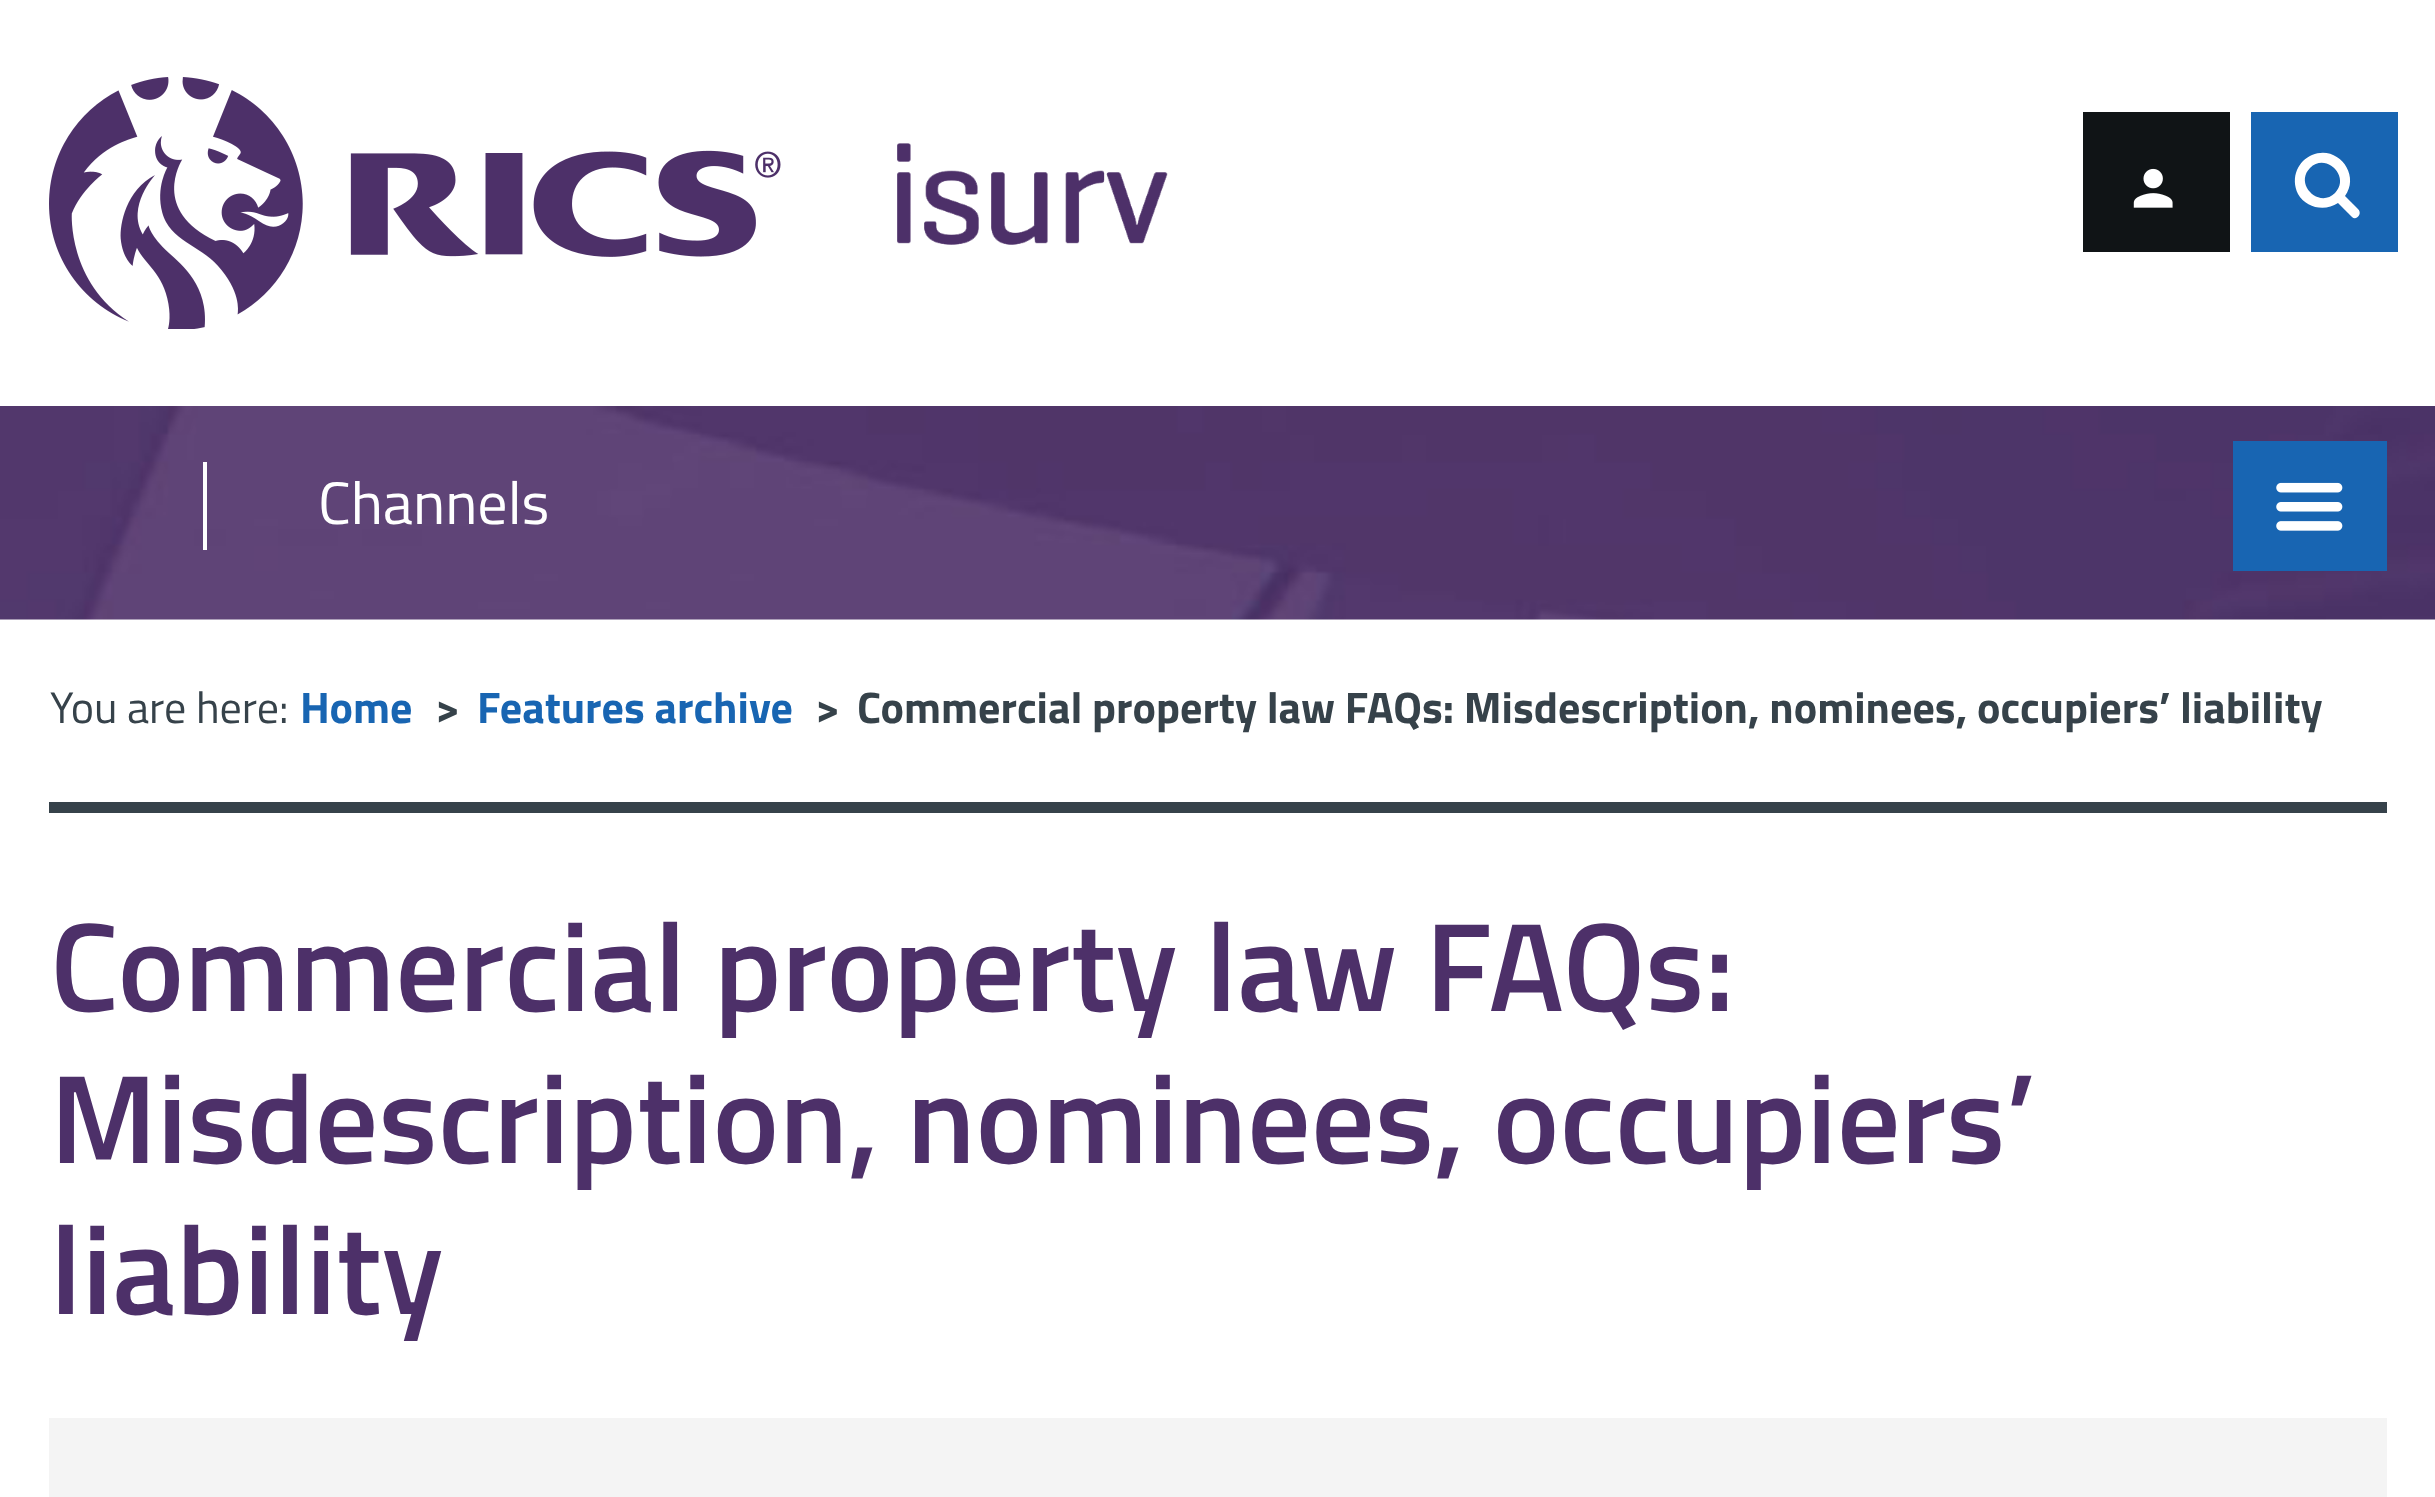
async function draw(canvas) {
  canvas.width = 2435;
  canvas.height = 1497;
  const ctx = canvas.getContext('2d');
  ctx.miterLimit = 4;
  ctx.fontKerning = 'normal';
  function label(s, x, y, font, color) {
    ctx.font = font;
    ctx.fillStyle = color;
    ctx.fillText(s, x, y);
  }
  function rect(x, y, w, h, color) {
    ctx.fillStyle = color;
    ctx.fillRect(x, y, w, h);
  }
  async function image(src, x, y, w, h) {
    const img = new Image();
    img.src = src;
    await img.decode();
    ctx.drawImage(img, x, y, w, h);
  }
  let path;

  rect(0, 0, 2435, 1497, '#fff');
  await image('assets/img1.png', 49, 77, 732, 252);
  await image('assets/img2.png', 897, 143, 271, 102);
  rect(2251, 112, 147, 140, '#1865b2');
  ctx.fillStyle = '#fff';
  path = new Path2D('M2358 209C2363 214 2356 221 2352 217L2338 203C2325 212 2306 208 2298 194C2294 186 2294 177 2297 170C2300 163 2305 158 2312 155C2337 144 2361 174 2345 196ZM2335 193C2351 177 2326 152 2310 168C2294 184 2319 209 2335 193Z');
  ctx.fill(path);
  rect(2083, 112, 147, 140, '#101416');
  await image('assets/img3.png', 2133, 168, 40, 40);
  await image('assets/img4.png', 0, 406, 2435, 214);
  rect(203, 462, 4, 88, '#fff');
  label('Channels', 318, 524, '60px Titillium Web', '#fff');
  rect(2233, 441, 154, 130, '#1865b2');
  await image('assets/img5.png', 2276, 482, 67, 49);
  rect(49, 802, 2338, 11, '#36424a');
  label('You are here:', 50, 723, '44.1px Titillium Web', '#36424a');
  label('Home', 300, 723, 'bold 44.1px Titillium Web', '#1865b2');
  label('>', 435, 723, 'bold 44.1px Titillium Web', '#36424a');
  label('Features archive', 477, 723, 'bold 44.1px Titillium Web', '#1865b2');
  label('>', 815, 723, 'bold 44.1px Titillium Web', '#36424a');
  label('Commercial property law FAQs: Misdescription, nominees, occupiers’ liability', 857, 723, 'bold 44.1px Titillium Web', '#36424a');
  label('Commercial property law FAQs:', 50, 1011, '600 126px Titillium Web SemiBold', '#4d3069');
  label('Misdescription, nominees, occupiers’', 50, 1163, '600 126px Titillium Web SemiBold', '#4d3069');
  label('liability', 50, 1314, '600 126px Titillium Web SemiBold', '#4d3069');
  rect(49, 1418, 2338, 79, '#f4f4f4');
}

draw(document.querySelector('canvas'));
